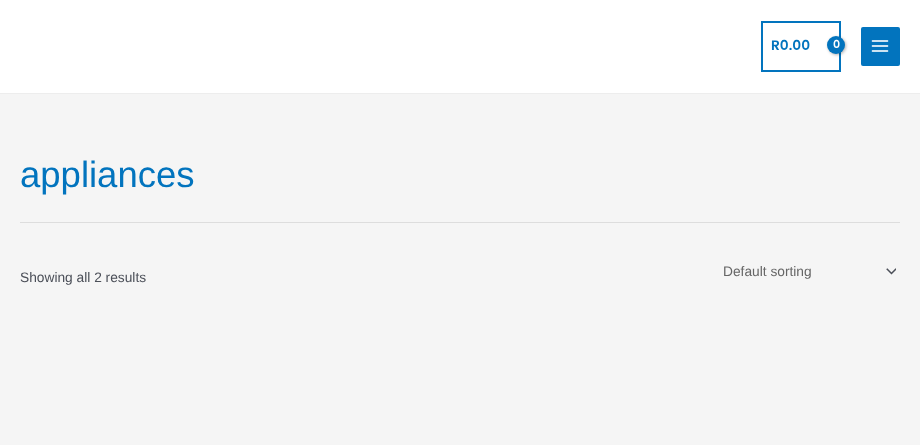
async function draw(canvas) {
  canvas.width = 920;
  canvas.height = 445;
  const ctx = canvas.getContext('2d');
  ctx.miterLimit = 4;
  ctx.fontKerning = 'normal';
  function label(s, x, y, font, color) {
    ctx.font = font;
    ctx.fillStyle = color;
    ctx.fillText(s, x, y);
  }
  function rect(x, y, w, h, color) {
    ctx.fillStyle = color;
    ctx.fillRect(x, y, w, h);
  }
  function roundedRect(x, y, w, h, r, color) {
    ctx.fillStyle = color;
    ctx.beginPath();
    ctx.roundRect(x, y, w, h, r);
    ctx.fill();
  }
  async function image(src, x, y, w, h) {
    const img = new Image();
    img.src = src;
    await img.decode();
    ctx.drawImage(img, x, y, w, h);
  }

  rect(0, 0, 920, 445, '#f5f5f5');
  rect(0, 0, 920, 93, '#fff');
  rect(0, 93, 920, 1, '#ededed');
  ctx.strokeStyle = '#0274be';
  ctx.lineWidth = 2;
  ctx.strokeRect(762, 22, 78, 49);
  label('R0.00', 771, 50, '600 13.75px Poppins', '#0274be');
  ctx.fillStyle = '#0000004d';
  ctx.filter = 'blur(1.5px)';
  ctx.beginPath();
  ctx.roundRect(828, 37, 18, 18, 9);
  ctx.fill();
  ctx.filter = 'none';
  ctx.fillStyle = '#0274be';
  ctx.beginPath();
  ctx.arc(836, 45, 9, 0, 2 * Math.PI);
  ctx.fill();
  label('0', 833, 48, '600 11px Poppins', '#fff');
  roundedRect(861, 27, 39, 39, 2, '#0274be');
  await image('assets/img1.png', 871, 40, 18, 12);
  rect(20, 222, 880, 1, '#ddd');
  label('appliances', 20, 187, '36.5px Liberation Sans', '#0274be');
  label('Showing all 2 results', 20, 282, '13.75px Liberation Sans', '#4b4f58');
  await image('assets/img2.png', 886, 268, 10, 7);
  label('Default sorting', 723, 276, '13.75px Liberation Sans', '#666');
}

draw(document.querySelector('canvas'));
